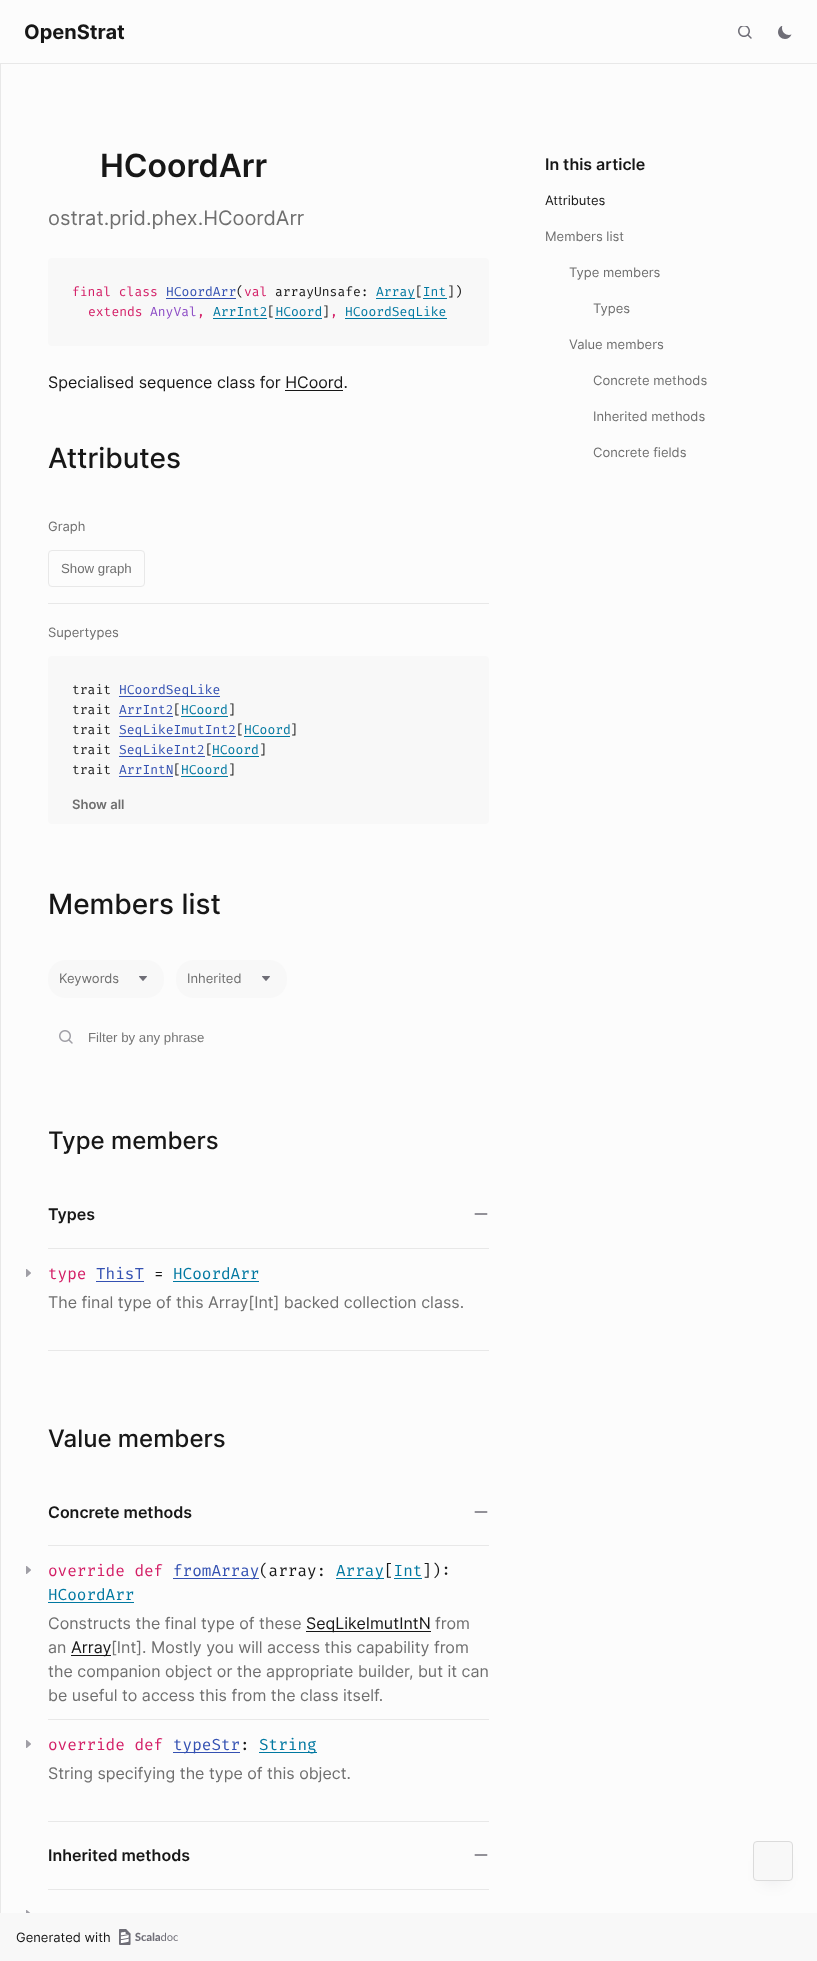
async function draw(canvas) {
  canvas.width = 817;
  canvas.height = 1961;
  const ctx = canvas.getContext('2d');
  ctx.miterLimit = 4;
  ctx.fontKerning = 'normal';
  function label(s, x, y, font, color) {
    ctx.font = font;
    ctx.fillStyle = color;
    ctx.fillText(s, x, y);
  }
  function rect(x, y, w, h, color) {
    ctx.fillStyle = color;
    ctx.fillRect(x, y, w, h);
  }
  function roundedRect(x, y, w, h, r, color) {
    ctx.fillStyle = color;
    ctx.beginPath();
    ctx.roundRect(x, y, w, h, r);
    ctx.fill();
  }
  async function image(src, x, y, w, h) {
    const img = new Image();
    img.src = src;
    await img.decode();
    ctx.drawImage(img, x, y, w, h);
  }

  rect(0, 0, 817, 1961, '#fcfcfc');
  rect(0, 63, 817, 1, '#e8e8e8');
  label('OpenStrat', 24, 39, 'bold 20px Inter', '#171717');
  await image('assets/img1.png', 738, 26, 14, 13);
  await image('assets/img2.png', 778, 26, 14, 13);
  rect(0, 64, 1, 1850, '#e8e8e8');
  label('HCoordArr', 100, 177, '600 32px Inter', '#171717');
  label('ostrat.prid.phex.HCoordArr', 48, 225, '20px Inter', '#6f6f6f');
  roundedRect(48, 258, 441, 88, 4, '#f8f8f8');
  label('final class', 72, 296, '13px Fira Code', '#d31e66');
  label('HCoordArr', 166, 296, '13px Fira Code', '#3451b2');
  rect(166, 298, 70, 1, '#3451b2');
  label('(', 236, 296, '13px Fira Code', '#171717');
  label('val', 244, 296, '13px Fira Code', '#d31e66');
  label('arrayUnsafe:', 275, 296, '13px Fira Code', '#171717');
  rect(376, 298, 39, 1, '#0078a1');
  label('Array Int', 376, 296, '13px Fira Code', '#0078a1');
  label('[', 415, 296, '13px Fira Code', '#171717');
  label('])', 447, 296, '13px Fira Code', '#171717');
  rect(423, 298, 24, 1, '#0078a1');
  label('extends', 88, 316, '13px Fira Code', '#d31e66');
  label('AnyVal', 150, 316, '13px Fira Code', '#8e4ec6');
  label('ArrInt2 HCoord', 213, 316, '13px Fira Code', '#0078a1');
  label('[', 267, 316, '13px Fira Code', '#171717');
  label(']', 322, 316, '13px Fira Code', '#171717');
  rect(345, 318, 102, 1, '#0078a1');
  label('HCoordSeqLike', 345, 316, '13px Fira Code', '#0078a1');
  label(',', 197, 316, '13px Fira Code', '#d31e66');
  rect(213, 318, 54, 1, '#0078a1');
  rect(275, 318, 47, 1, '#0078a1');
  label(',', 330, 316, '13px Fira Code', '#d31e66');
  label('Specialised sequence class for HCoord.', 48, 388, '16px Inter', '#171717');
  rect(285, 390, 58, 1, '#171717');
  label('Attributes', 48, 468, '500 28px Inter', '#171717');
  label('Graph', 48, 531, '13px Inter', '#6f6f6f');
  ctx.beginPath();
  ctx.roundRect(48.5, 550.5, 96, 36, 3.5);
  ctx.strokeStyle = '#e8e8e8';
  ctx.stroke();
  label('Show graph', 61, 573, '13.25px Liberation Sans', '#6f6f6f');
  rect(48, 603, 441, 1, '#e8e8e8');
  label('Supertypes', 48, 637, '13px Inter', '#6f6f6f');
  roundedRect(48, 656, 441, 168, 4, '#f8f8f8');
  label('trait', 72, 694, '13px Fira Code', '#171717');
  rect(119, 696, 101, 1, '#3451b2');
  label('HCoordSeqLike', 119, 694, '13px Fira Code', '#3451b2');
  label('trait', 72, 714, '13px Fira Code', '#171717');
  label('ArrInt2', 119, 714, '13px Fira Code', '#3451b2');
  rect(119, 716, 54, 1, '#3451b2');
  label('[', 173, 714, '13px Fira Code', '#171717');
  label('HCoord', 181, 714, '13px Fira Code', '#0078a1');
  rect(181, 716, 47, 1, '#0078a1');
  label(']', 228, 714, '13px Fira Code', '#171717');
  label('trait', 72, 734, '13px Fira Code', '#171717');
  rect(119, 736, 117, 1, '#3451b2');
  label('SeqLikeImutInt2', 119, 734, '13px Fira Code', '#3451b2');
  label('[', 236, 734, '13px Fira Code', '#171717');
  label('HCoord', 244, 734, '13px Fira Code', '#0078a1');
  rect(244, 736, 46, 1, '#0078a1');
  label(']', 290, 734, '13px Fira Code', '#171717');
  label('trait', 72, 754, '13px Fira Code', '#171717');
  rect(119, 756, 86, 1, '#3451b2');
  label('SeqLikeInt2', 119, 754, '13px Fira Code', '#3451b2');
  label('[', 205, 754, '13px Fira Code', '#171717');
  label('HCoord', 212, 754, '13px Fira Code', '#0078a1');
  rect(212, 756, 47, 1, '#0078a1');
  label(']', 259, 754, '13px Fira Code', '#171717');
  label('trait', 72, 774, '13px Fira Code', '#171717');
  label('ArrIntN', 119, 774, '13px Fira Code', '#3451b2');
  rect(119, 776, 54, 1, '#3451b2');
  label('[', 173, 774, '13px Fira Code', '#171717');
  label('HCoord', 181, 774, '13px Fira Code', '#0078a1');
  rect(181, 776, 47, 1, '#0078a1');
  label(']', 228, 774, '13px Fira Code', '#171717');
  label('Show all', 72, 809, '600 13px Inter', '#6f6f6f');
  label('Members list', 48, 914, '500 28px Inter', '#171717');
  roundedRect(48, 960, 116, 38, 18, '#f8f8f8');
  label('Keywords', 59, 983, '13px Inter', '#6f6f6f');
  await image('assets/img3.png', 139, 976, 8, 5);
  roundedRect(176, 960, 111, 38, 18, '#f8f8f8');
  label('Inherited', 187, 983, '13px Inter', '#6f6f6f');
  await image('assets/img3.png', 262, 976, 8, 5);
  await image('assets/img4.png', 59, 1030, 14, 14);
  label('Filter by any phrase', 88, 1042, '13.25px Liberation Sans', '#757575');
  label('Type members', 48, 1149, '500 24px Inter', '#171717');
  rect(48, 1350, 441, 1, '#e8e8e8');
  label('Types', 48, 1220, '600 16px Inter', '#171717');
  await image('assets/img5.png', 474, 1213, 14, 2);
  rect(48, 1248, 441, 1, '#e8e8e8');
  await image('assets/img6.png', 26, 1269, 5, 8);
  label('type', 48, 1279, '16px Fira Code', '#d31e66');
  label('ThisT', 96, 1279, '16px Fira Code', '#3451b2');
  rect(96, 1281, 48, 1, '#3451b2');
  label('=', 154, 1279, '16px Fira Code', '#171717');
  label('HCoordArr', 173, 1279, '16px Fira Code', '#0078a1');
  rect(173, 1281, 86, 1, '#0078a1');
  label('The final type of this Array[Int] backed collection class.', 48, 1308, '16px Inter', '#6f6f6f');
  label('Value members', 48, 1447, '500 24px Inter', '#171717');
  rect(48, 1821, 441, 1, '#e8e8e8');
  label('Concrete methods', 48, 1518, '600 16px Inter', '#171717');
  await image('assets/img5.png', 474, 1511, 14, 2);
  rect(48, 1545, 441, 1, '#e8e8e8');
  await image('assets/img7.png', 26, 1566, 5, 8);
  label('override def', 48, 1576, '16px Fira Code', '#d31e66');
  rect(173, 1578, 86, 1, '#3451b2');
  label('fromArray', 173, 1576, '16px Fira Code', '#3451b2');
  label('(array:', 259, 1576, '16px Fira Code', '#171717');
  rect(336, 1578, 48, 1, '#0078a1');
  label('Array Int', 336, 1576, '16px Fira Code', '#0078a1');
  label('[', 384, 1576, '16px Fira Code', '#171717');
  label(']):', 422, 1576, '16px Fira Code', '#171717');
  rect(394, 1578, 28, 1, '#0078a1');
  label('HCoordArr', 48, 1600, '16px Fira Code', '#0078a1');
  rect(48, 1602, 86, 1, '#0078a1');
  label('Constructs the final type of these', 48, 1629, '16px Inter', '#6f6f6f');
  rect(306, 1631, 125, 1, '#171717');
  label('SeqLikeImutIntN', 306, 1629, '16px Inter', '#171717');
  label('from', 435, 1629, '16px Inter', '#6f6f6f');
  label('an', 48, 1653, '16px Inter', '#6f6f6f');
  rect(71, 1655, 40, 1, '#171717');
  label('Array', 71, 1653, '16px Inter', '#171717');
  label('[Int]. Mostly you will access this capability from', 111, 1653, '16px Inter', '#6f6f6f');
  label('the companion object or the appropriate builder, but it can', 48, 1677, '16px Inter', '#6f6f6f');
  label('be useful to access this from the class itself.', 48, 1701, '16px Inter', '#6f6f6f');
  rect(48, 1719, 441, 1, '#e8e8e8');
  await image('assets/img7.png', 26, 1740, 5, 8);
  label('override def', 48, 1750, '16px Fira Code', '#d31e66');
  rect(173, 1752, 67, 1, '#3451b2');
  label('typeStr', 173, 1750, '16px Fira Code', '#3451b2');
  label(':', 240, 1750, '16px Fira Code', '#171717');
  rect(259, 1752, 58, 1, '#0078a1');
  label('String', 259, 1750, '16px Fira Code', '#0078a1');
  label('String specifying the type of this object.', 48, 1779, '16px Inter', '#6f6f6f');
  label('Inherited methods', 48, 1861, '600 16px Inter', '#171717');
  await image('assets/img5.png', 474, 1854, 14, 2);
  rect(48, 1889, 441, 1, '#e8e8e8');
  await image('assets/img8.png', 26, 1910, 5, 3);
  label('In this article', 545, 170, '600 16px Inter', '#171717');
  label('Attributes', 545, 205, '13px Inter', '#171717');
  label('Members list', 545, 241, '13px Inter', '#6f6f6f');
  label('Type members', 569, 277, '13px Inter', '#6f6f6f');
  label('Types', 593, 313, '13px Inter', '#6f6f6f');
  label('Value members', 569, 349, '13px Inter', '#6f6f6f');
  label('Concrete methods', 593, 385, '13px Inter', '#6f6f6f');
  label('Inherited methods', 593, 421, '13px Inter', '#6f6f6f');
  label('Concrete fields', 593, 457, '13px Inter', '#6f6f6f');
  ctx.fillStyle = '#0e121659';
  ctx.filter = 'blur(10px)';
  ctx.beginPath();
  ctx.rect(768, 1866, 10, 10);
  ctx.fill();
  ctx.filter = 'none';
  ctx.fillStyle = '#f8f8f8';
  ctx.beginPath();
  ctx.roundRect(753.5, 1841.5, 39, 39, 3.5);
  ctx.fill();
  ctx.strokeStyle = '#dbdbdb';
  ctx.stroke();
  rect(0, 1913, 817, 48, '#f8f8f8');
  label('Generated with', 16, 1942, '13px Inter', '#171717');
  await image('assets/img9.png', 119, 1929, 59, 16);
}

draw(document.querySelector('canvas'));
